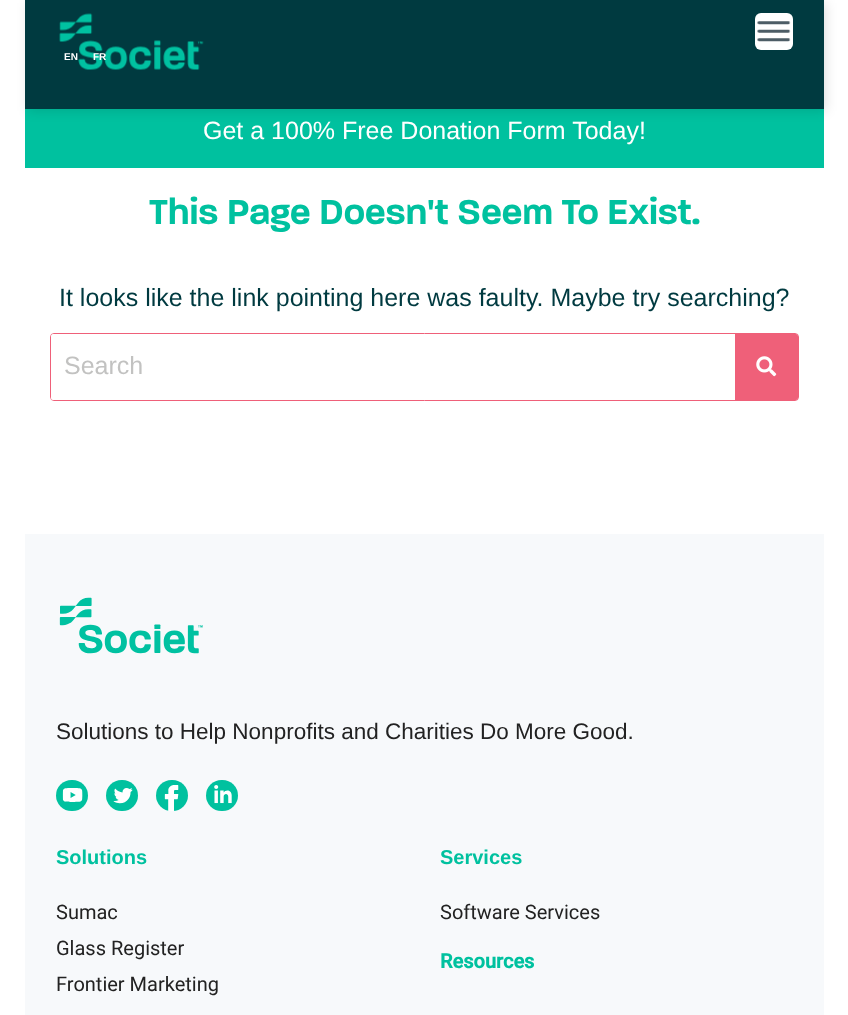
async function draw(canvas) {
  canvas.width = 848;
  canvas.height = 1015;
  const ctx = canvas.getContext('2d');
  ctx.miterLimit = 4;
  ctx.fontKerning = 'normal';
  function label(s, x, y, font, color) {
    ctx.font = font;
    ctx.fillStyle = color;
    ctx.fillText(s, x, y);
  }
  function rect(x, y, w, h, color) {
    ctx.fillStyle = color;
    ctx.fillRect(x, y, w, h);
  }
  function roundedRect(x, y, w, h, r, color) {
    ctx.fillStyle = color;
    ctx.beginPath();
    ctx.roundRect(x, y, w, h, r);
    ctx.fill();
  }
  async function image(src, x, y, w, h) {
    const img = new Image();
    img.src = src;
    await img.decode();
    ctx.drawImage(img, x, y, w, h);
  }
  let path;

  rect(0, 0, 848, 1015, '#fff');
  rect(25, 0, 799, 109, '#003a40');
  rect(25, 109, 799, 59, '#00c19f');
  ctx.save();
  path = new Path2D('M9 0H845V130H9ZM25 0H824V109H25Z');
  ctx.clip(path, 'evenodd');
  ctx.fillStyle = '#0000001f';
  ctx.filter = 'blur(6px)';
  ctx.beginPath();
  ctx.rect(28, 3, 798, 108);
  ctx.fill();
  ctx.filter = 'none';
  ctx.restore();
  await image('assets/img1.png', 59, 13, 145, 57);
  roundedRect(755, 13, 38, 37, 6, '#fff');
  await image('assets/img2.png', 757, 21, 34, 21);
  label('EN', 64, 60, 'bold 10px Liberation Sans', '#fff');
  label('FR', 93, 60, 'bold 10px Liberation Sans', '#fff');
  label('Get a 100% Free Donation Form Today!', 203, 139, '25px Liberation Sans', '#fff');
  label('This Page Doesn\'t Seem To Exist.', 149, 224, '600 37.5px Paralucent', '#00c19f');
  label('It looks like the link pointing here was faulty. Maybe try searching?', 59, 306, '25px Liberation Sans', '#003a40');
  ctx.beginPath();
  ctx.roundRect(50.5, 333.5, 748, 67, 3.5);
  ctx.strokeStyle = '#ef6079';
  ctx.stroke();
  ctx.fillStyle = '#fff';
  ctx.beginPath();
  ctx.roundRect(51, 334, 684, 66, [2.5, 0, 0, 2.5]);
  ctx.fill();
  label('Search', 64, 374, '25px Liberation Sans', '#c2c2c1');
  ctx.fillStyle = '#ef6079';
  ctx.beginPath();
  ctx.roundRect(735, 334, 63, 66, [0, 2.5, 2.5, 0]);
  ctx.fill();
  await image('assets/img3.png', 756, 356, 21, 21);
  rect(25, 534, 799, 481, '#f7f9fb');
  await image('assets/img4.png', 59, 597, 144, 57);
  label('Solutions to Help Nonprofits and Charities Do More Good.', 56, 739, '22.5px Liberation Sans', '#222');
  roundedRect(56, 780, 32, 31, 15.5, '#00c19f');
  await image('assets/img5.png', 62, 788, 21, 14);
  roundedRect(106, 780, 32, 31, 15.5, '#00c19f');
  await image('assets/img6.png', 113, 788, 20, 16);
  roundedRect(156, 780, 32, 31, 15.5, '#00c19f');
  await image('assets/img7.png', 164, 785, 15, 26);
  roundedRect(206, 780, 32, 31, 15.5, '#00c19f');
  await image('assets/img8.png', 214, 785, 18, 19);
  label('Solutions', 56, 864, 'bold 20px Liberation Sans', '#00c19f');
  label('Sumac', 56, 919, '20px Roboto', '#222');
  label('Glass Register', 56, 955, '20px Roboto', '#222');
  label('Frontier Marketing', 56, 991, '20px Roboto', '#222');
  label('Services', 440, 864, 'bold 20px Liberation Sans', '#00c19f');
  label('Software Services', 440, 919, '20px Roboto', '#222');
  label('Resources', 440, 968, 'bold 20px Roboto', '#00c19f');
}

draw(document.querySelector('canvas'));
